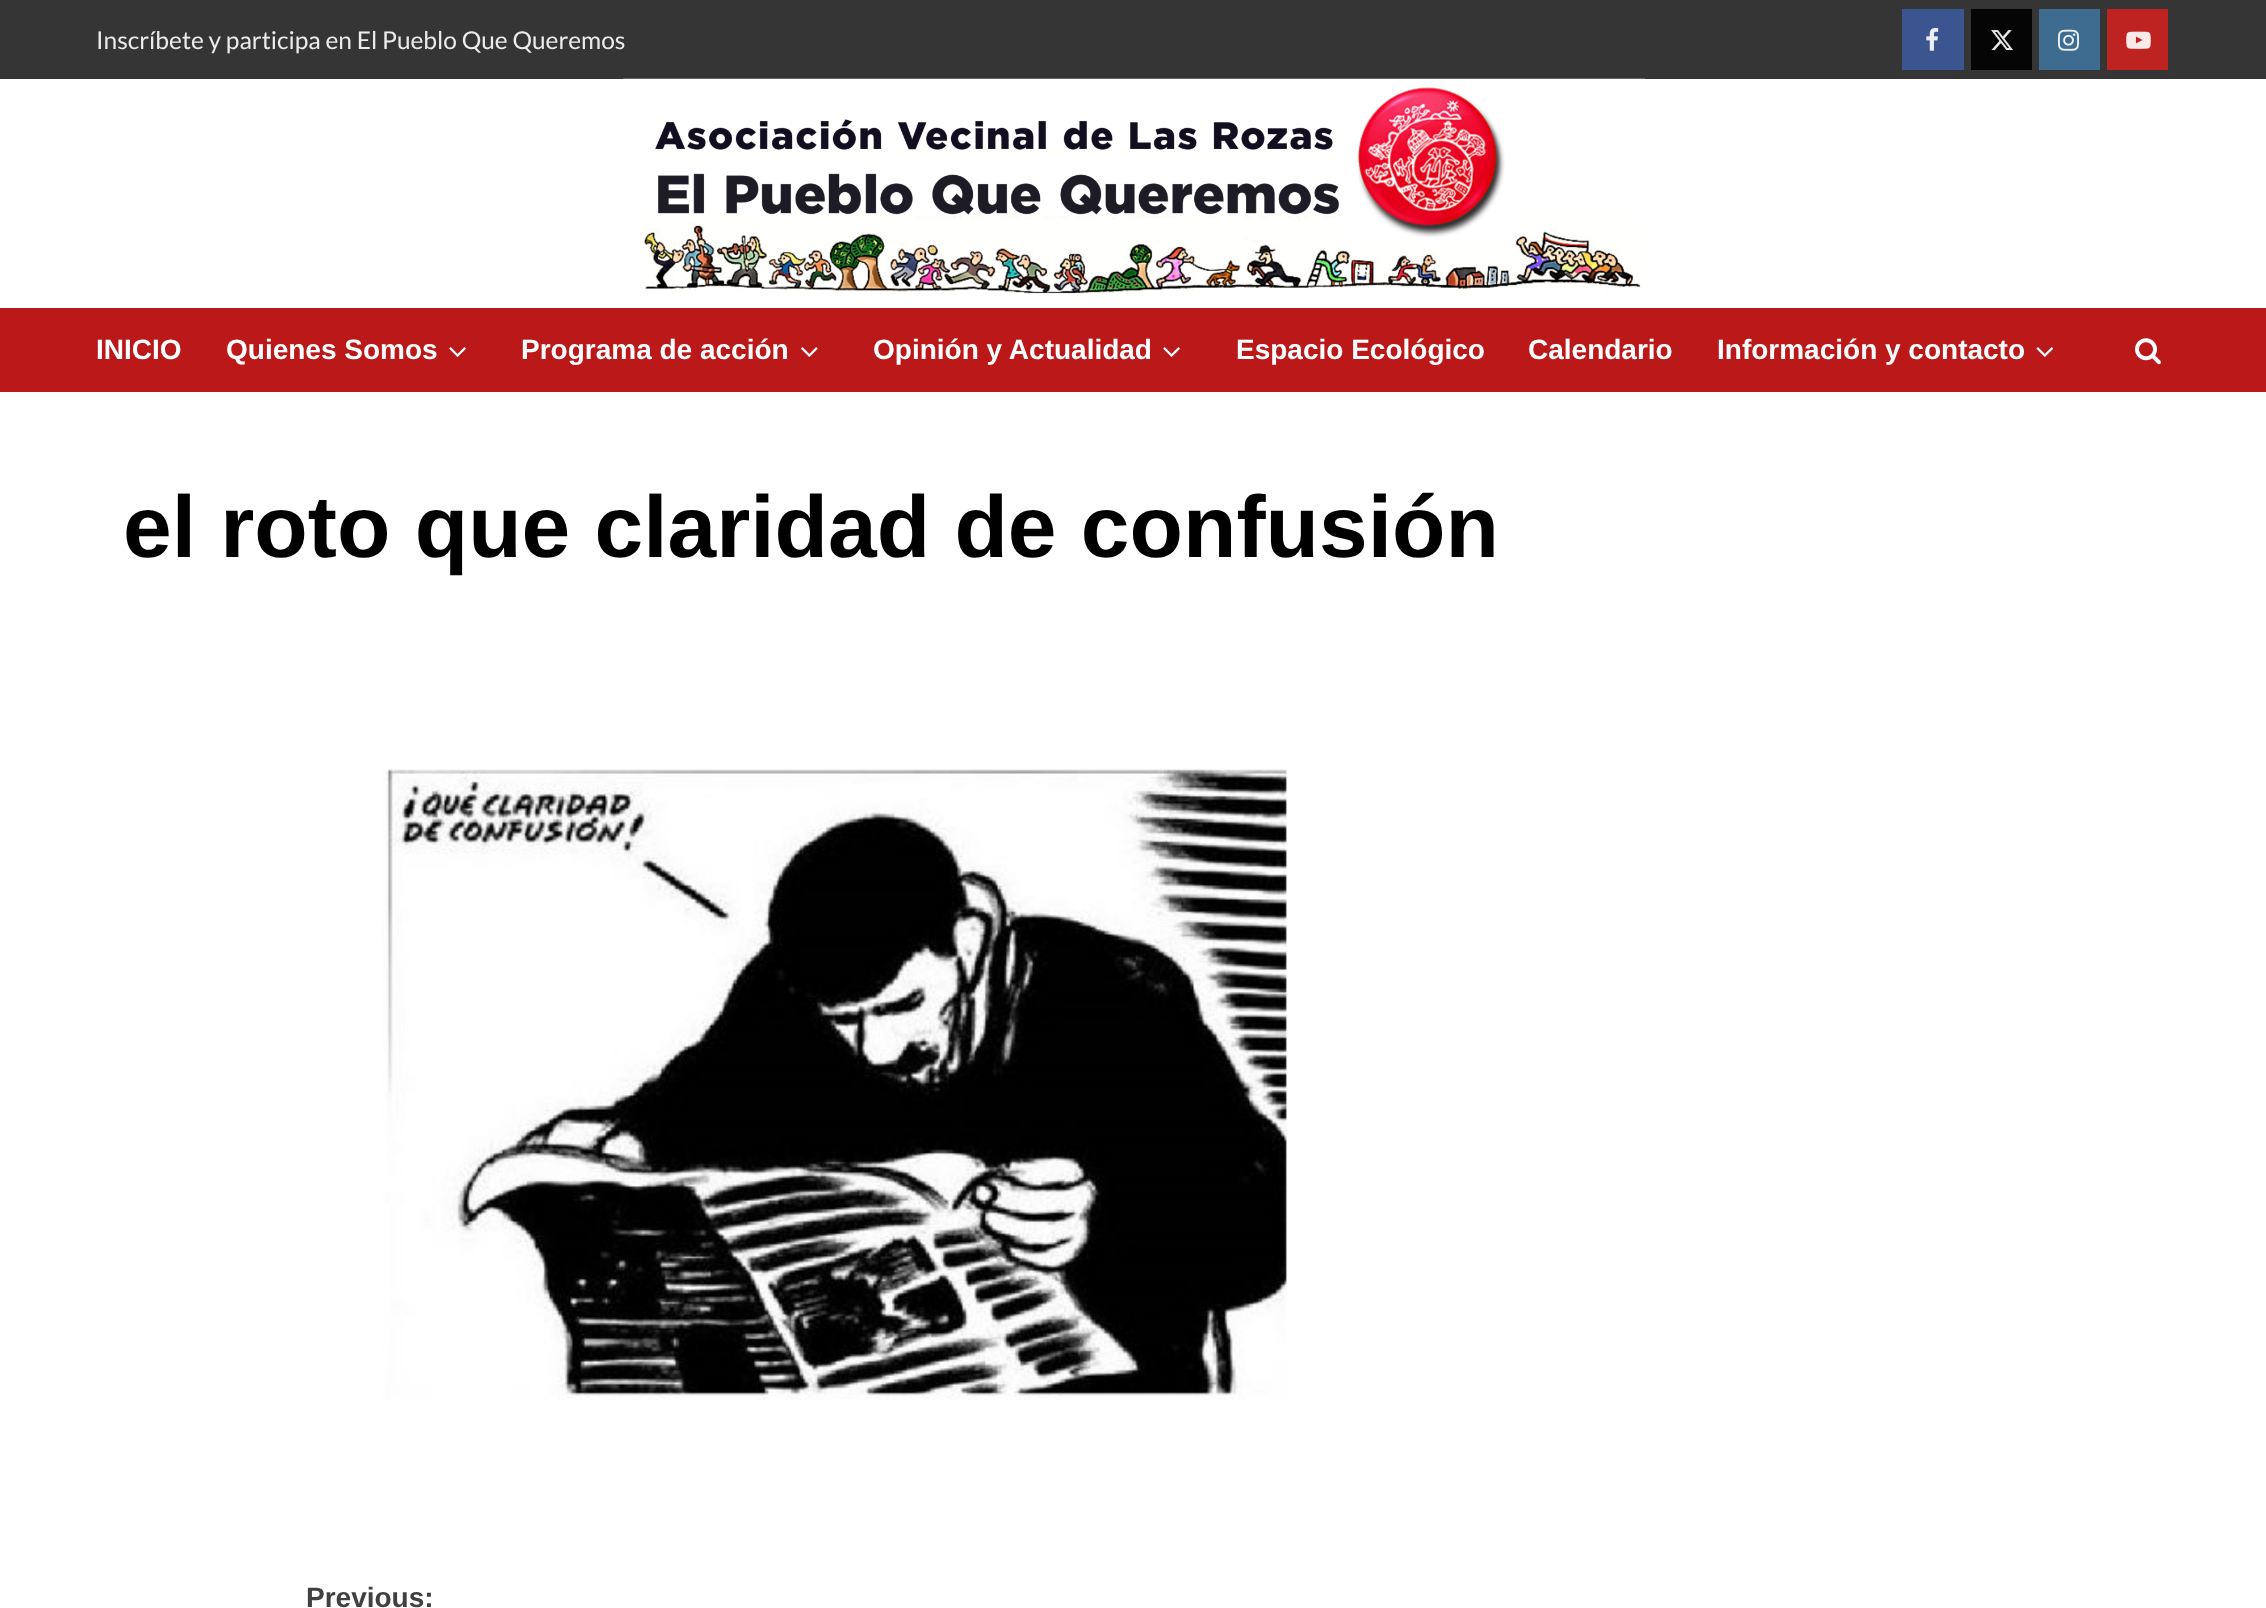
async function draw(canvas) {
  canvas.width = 2266;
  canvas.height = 1608;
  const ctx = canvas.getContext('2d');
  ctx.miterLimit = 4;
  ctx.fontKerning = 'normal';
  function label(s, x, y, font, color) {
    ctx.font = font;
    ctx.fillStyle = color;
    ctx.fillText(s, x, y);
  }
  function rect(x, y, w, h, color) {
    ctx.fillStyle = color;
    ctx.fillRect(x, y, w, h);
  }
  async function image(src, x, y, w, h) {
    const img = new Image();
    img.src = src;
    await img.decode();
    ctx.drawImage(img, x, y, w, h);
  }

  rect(0, 0, 2266, 1608, '#fff');
  rect(0, 0, 2266, 79, '#353535');
  label('Inscríbete y participa en El Pueblo Que Queremos', 96, 49, '24.5px Lato', '#ebebeb');
  rect(1902, 9, 62, 61, '#3a558f');
  await image('assets/img1.png', 1926, 28, 13, 23);
  rect(1971, 9, 61, 61, '#050505');
  await image('assets/img2.png', 1991, 30, 22, 20);
  rect(2039, 9, 61, 61, '#3e6c91');
  await image('assets/img3.png', 2058, 29, 21, 22);
  rect(2107, 9, 61, 61, '#be2221');
  await image('assets/img4.png', 2126, 31, 25, 18);
  await image('assets/img5.png', 623, 78, 1022, 216);
  rect(0, 308, 2266, 84, '#bb1919');
  label('INICIO', 96, 359, 'bold 28px Liberation Sans', '#fff');
  label('Quienes Somos', 226, 359, 'bold 28px Liberation Sans', '#fff');
  await image('assets/img6.png', 449, 347, 17, 10);
  label('Programa de acción', 521, 359, 'bold 28px Liberation Sans', '#fff');
  await image('assets/img7.png', 801, 347, 17, 10);
  label('Opinión y Actualidad', 873, 359, 'bold 28px Liberation Sans', '#fff');
  await image('assets/img6.png', 1163, 347, 17, 10);
  label('Espacio Ecológico', 1236, 359, 'bold 28px Liberation Sans', '#fff');
  label('Calendario', 1528, 359, 'bold 28px Liberation Sans', '#fff');
  label('Información y contacto', 1717, 359, 'bold 28px Liberation Sans', '#fff');
  await image('assets/img8.png', 2036, 347, 18, 10);
  await image('assets/img9.png', 2135, 338, 26, 27);
  label('el roto que claridad de confusión', 123, 557, 'bold 87.5px Liberation Sans', '#000');
  await image('assets/img10.png', 382, 769, 905, 631);
  label('Previous:', 306, 1607, 'bold 28px Liberation Sans', '#404040');
}

draw(document.querySelector('canvas'));
